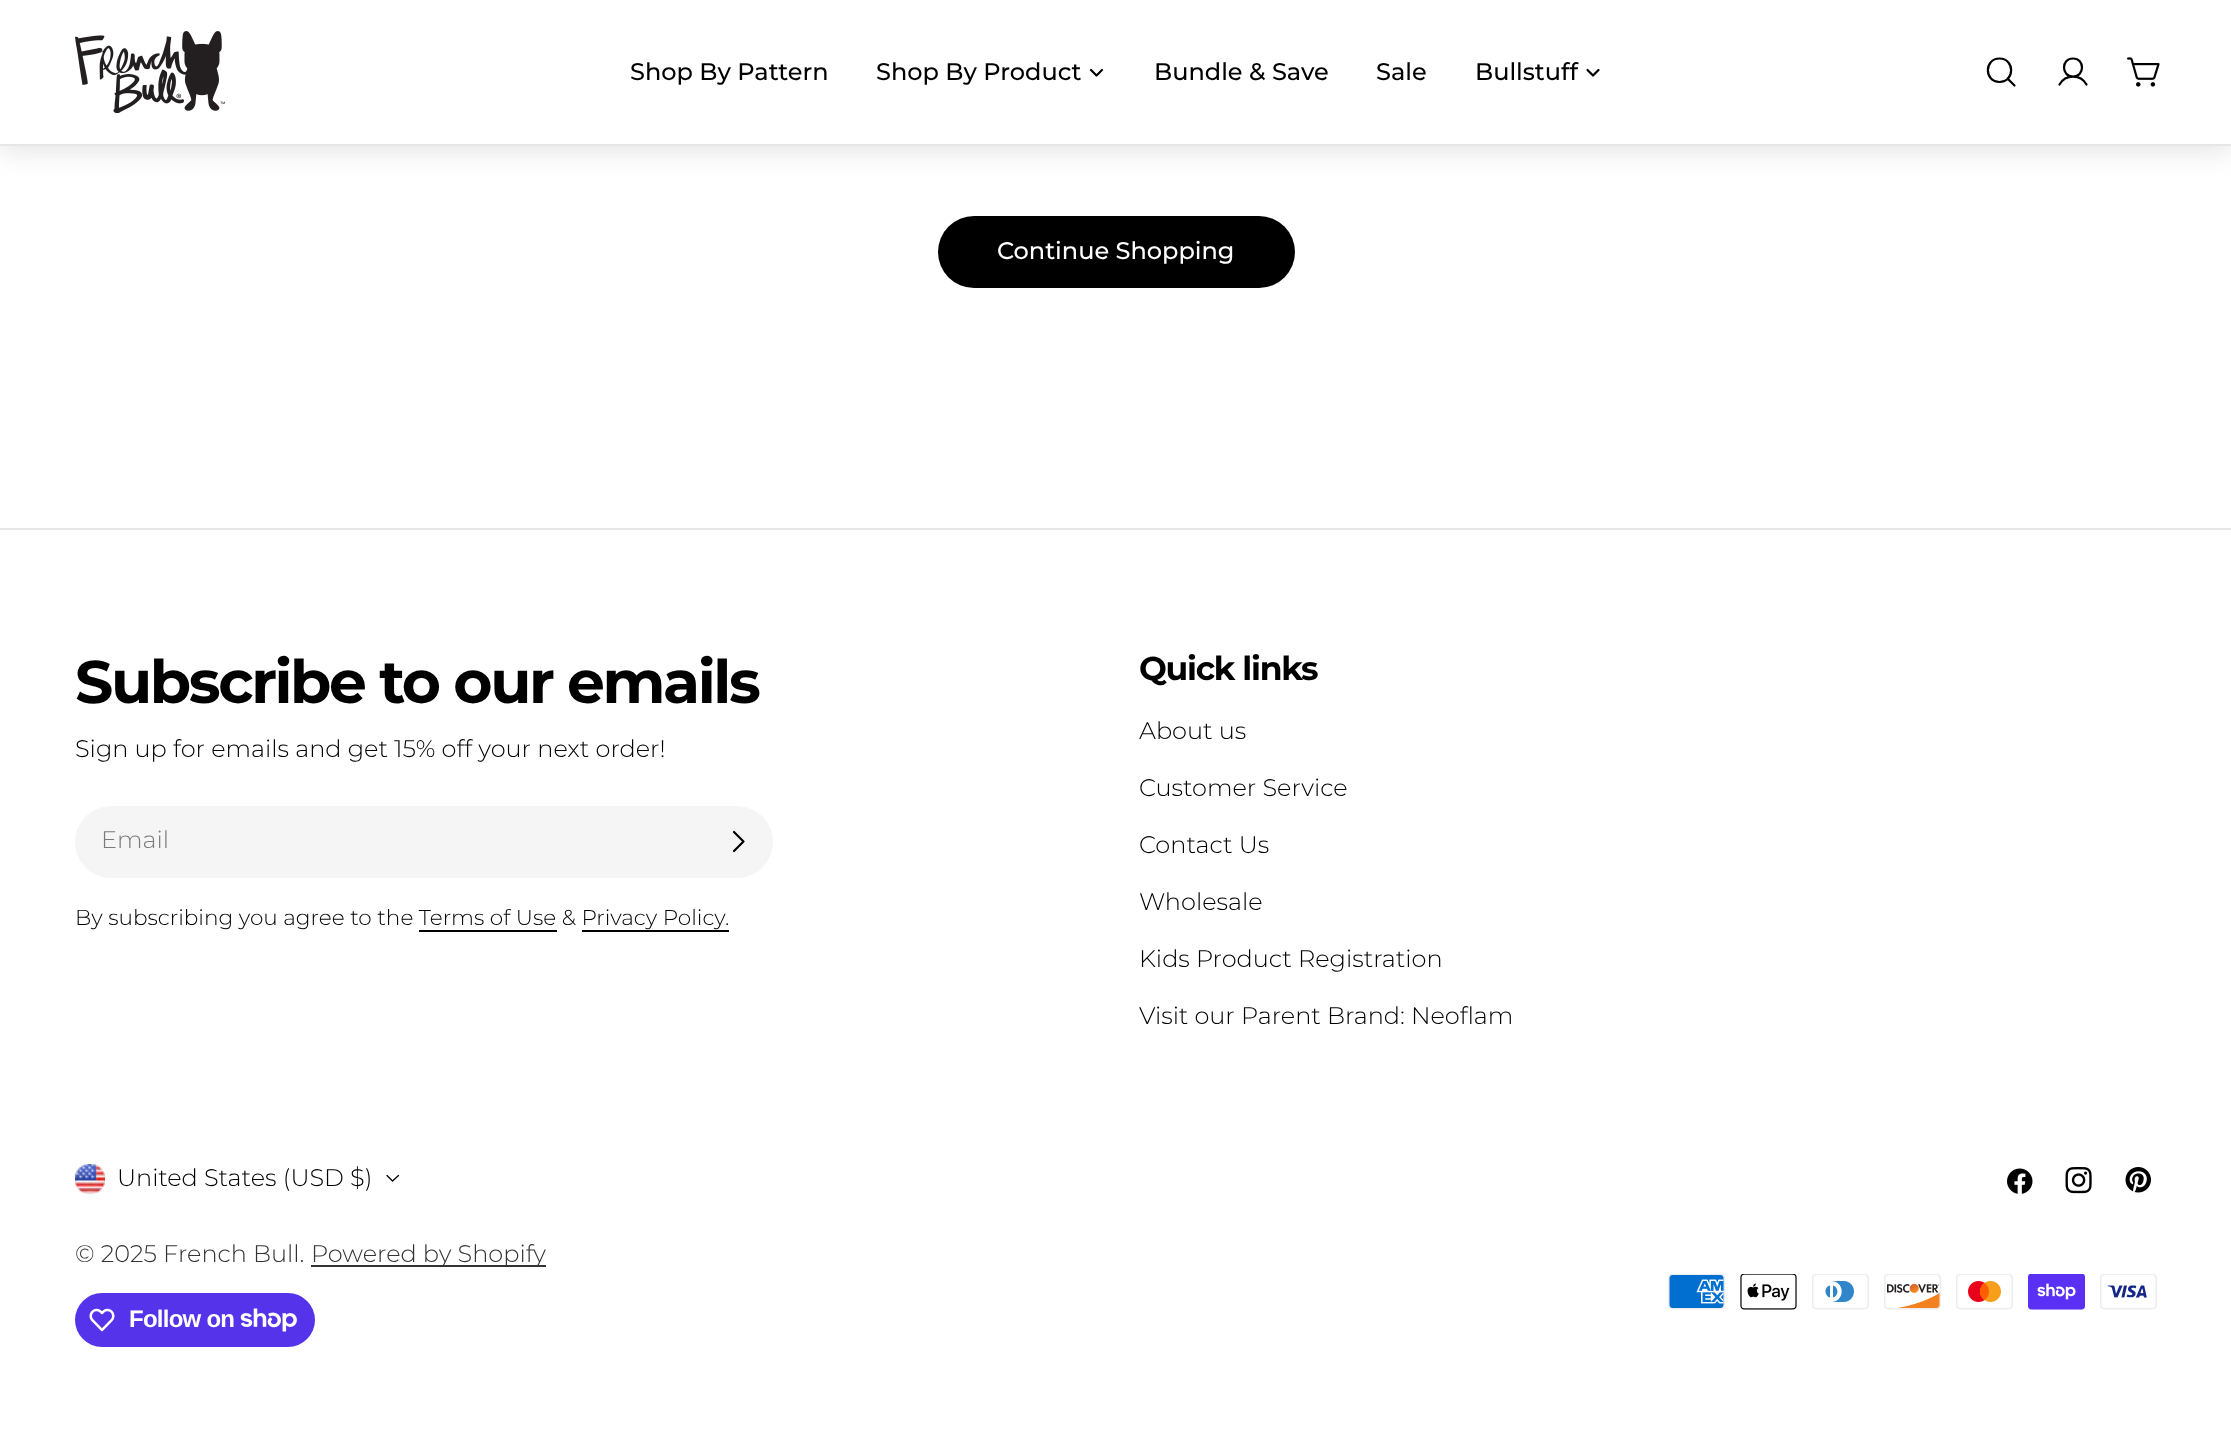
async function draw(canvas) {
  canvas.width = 2231;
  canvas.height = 1452;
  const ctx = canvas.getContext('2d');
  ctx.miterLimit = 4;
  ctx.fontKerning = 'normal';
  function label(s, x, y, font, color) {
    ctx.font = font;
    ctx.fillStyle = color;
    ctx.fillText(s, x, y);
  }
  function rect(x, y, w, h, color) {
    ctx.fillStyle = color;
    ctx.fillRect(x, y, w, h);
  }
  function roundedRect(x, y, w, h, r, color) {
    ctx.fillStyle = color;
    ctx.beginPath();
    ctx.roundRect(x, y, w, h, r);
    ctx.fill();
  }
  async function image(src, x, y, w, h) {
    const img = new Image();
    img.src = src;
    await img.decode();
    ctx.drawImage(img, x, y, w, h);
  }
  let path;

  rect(0, 0, 2231, 1452, '#fff');
  ctx.fillStyle = '#0000001a';
  ctx.filter = 'blur(13.5px)';
  ctx.beginPath();
  ctx.rect(0, 6, 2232, 146);
  ctx.fill();
  ctx.filter = 'none';
  rect(0, 144, 2231, 2, '#e6e6e6');
  rect(0, 0, 2231, 144, '#fff');
  await image('assets/img1.png', 75, 31, 150, 82);
  label('Shop By Pattern', 630, 80, '500 24px Montserrat', '#000');
  label('Shop By Product', 876, 80, '500 24px Montserrat', '#000');
  path = new Path2D('M1102 70L1096.5 75.5L1091 70');
  ctx.strokeStyle = '#000';
  ctx.lineWidth = 2.2;
  ctx.lineCap = 'round';
  ctx.lineJoin = 'round';
  ctx.stroke(path);
  label('Bundle & Save', 1154, 80, '500 24px Montserrat', '#000');
  label('Sale', 1376, 80, '500 24px Montserrat', '#000');
  label('Bullstuff', 1475, 80, '500 24px Montserrat', '#000');
  path = new Path2D('M1598.5 70L1593 75.5L1587.5 70');
  ctx.stroke(path);
  path = new Path2D('M1999.5 82C2015 82 2015 58.5 1999.5 58.5C1984 58.5 1984 82 1999.5 82ZM2007.5 78.5L2014.5 85.5');
  ctx.stroke(path);
  path = new Path2D('M2073 76.5C2085 76.5 2085 58.5 2073 58.5C2061 58.5 2061 76.5 2073 76.5ZM2059.5 84.5C2065.5 74 2080.5 74 2086.5 84.5');
  ctx.stroke(path);
  await image('assets/img2.png', 2127, 57, 33, 30);
  roundedRect(938, 216, 357, 72, 36, '#000');
  label('Continue Shopping', 997, 259, '500 24px Montserrat', '#fff');
  rect(0, 528, 2231, 2, '#e6e6e6');
  ctx.letterSpacing = '-2.4px';
  label('Subscribe to our emails', 75, 703, 'bold 60px Montserrat', '#000');
  ctx.letterSpacing = '0px';
  label('Sign up for emails and get 15% off your next order!', 75, 757, '300 24px Montserrat', '#000');
  ctx.fillStyle = '#f5f5f5';
  ctx.beginPath();
  ctx.roundRect(76, 807, 696, 70, 35);
  ctx.fill();
  ctx.strokeStyle = '#f5f5f5';
  ctx.lineWidth = 2;
  ctx.lineJoin = 'miter';
  ctx.stroke();
  label('Email', 101, 848, '300 24px Montserrat', '#7b7b7b');
  path = new Path2D('M734 832L743.5 841.5L734 851');
  ctx.strokeStyle = '#000';
  ctx.lineWidth = 2.2;
  ctx.lineJoin = 'round';
  ctx.stroke(path);
  label('By subscribing you agree to the Terms of Use & Privacy Policy.', 75, 925, '300 21.6px Montserrat', '#000');
  rect(419, 930, 138, 2, '#000');
  rect(582, 930, 147, 2, '#000');
  ctx.letterSpacing = '-1.25px';
  label('Quick links', 1139, 680, 'bold 33px Montserrat', '#000');
  ctx.letterSpacing = '0px';
  label('About us', 1139, 739, '300 24px Montserrat', '#000');
  label('Customer Service', 1139, 796, '300 24px Montserrat', '#000');
  label('Contact Us', 1139, 853, '300 24px Montserrat', '#000');
  label('Wholesale', 1139, 910, '300 24px Montserrat', '#000');
  label('Kids Product Registration', 1139, 967, '300 24px Montserrat', '#000');
  label('Visit our Parent Brand: Neoflam', 1139, 1024, '300 24px Montserrat', '#000');
  await image('assets/img3.png', 75, 1164, 30, 30);
  label('United States (USD $)', 117, 1186, '300 24px Montserrat', '#000');
  path = new Path2D('M398.5 1175.5L392.5 1181L387 1175.5');
  ctx.lineWidth = 1.3;
  ctx.stroke(path);
  await image('assets/img4.png', 2007, 1168, 26, 26);
  await image('assets/img5.png', 2065, 1167, 27, 27);
  await image('assets/img6.png', 2125, 1167, 26, 26);
  label('© 2025 French Bull.', 75, 1262, '300 24px Montserrat', '#333');
  rect(311, 1265, 235, 2, '#333');
  label('Powered by Shopify', 311, 1262, '300 24px Montserrat', '#333');
  roundedRect(75, 1293, 240, 54, 27, '#5433eb');
  await image('assets/img7.png', 89, 1308, 26, 24);
  ctx.letterSpacing = '-0.75px';
  label('Follow on', 129, 1327, 'bold 24px Liberation Sans', '#fff');
  await image('assets/img8.png', 240, 1308, 57, 24);
  await image('assets/img9.png', 1668, 1274, 57, 36);
  await image('assets/img10.png', 1740, 1274, 57, 36);
  await image('assets/img11.png', 1812, 1274, 57, 36);
  await image('assets/img12.png', 1884, 1274, 57, 36);
  await image('assets/img13.png', 1956, 1274, 57, 36);
  await image('assets/img14.png', 2028, 1274, 57, 36);
  await image('assets/img15.png', 2100, 1274, 57, 36);
}

draw(document.querySelector('canvas'));
